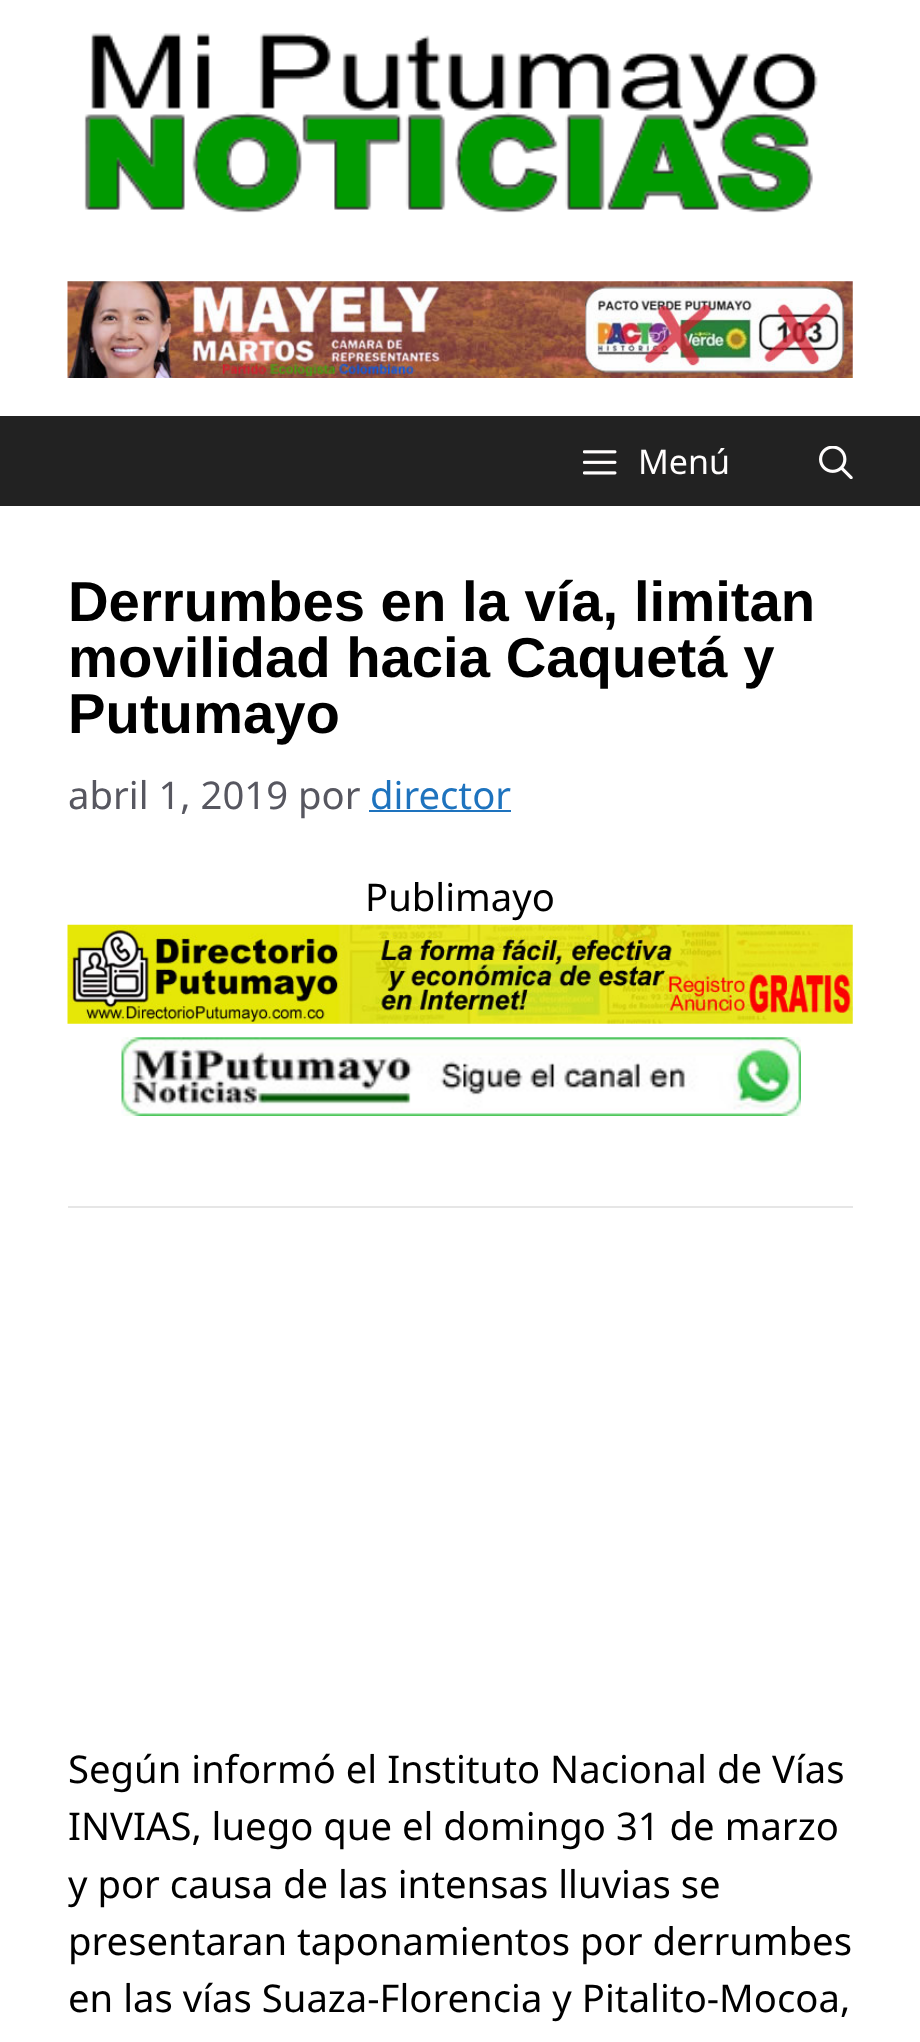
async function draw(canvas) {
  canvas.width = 920;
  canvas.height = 2042;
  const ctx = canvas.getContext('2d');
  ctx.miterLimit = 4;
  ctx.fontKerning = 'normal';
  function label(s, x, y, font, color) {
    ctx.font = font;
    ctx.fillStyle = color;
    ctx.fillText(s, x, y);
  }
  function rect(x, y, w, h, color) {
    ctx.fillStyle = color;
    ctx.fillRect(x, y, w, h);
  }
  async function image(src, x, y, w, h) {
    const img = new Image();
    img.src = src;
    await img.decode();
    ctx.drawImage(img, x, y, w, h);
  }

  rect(0, 0, 920, 2042, '#222');
  rect(0, 0, 920, 416, '#fff');
  await image('assets/img1.png', 84, 33, 734, 180);
  await image('assets/img2.png', 67, 281, 786, 97);
  await image('assets/img3.png', 583, 450, 34, 25);
  label('Menú', 638, 474, '34px Noto Sans', '#fffdfd');
  await image('assets/img4.png', 819, 446, 34, 33);
  rect(0, 506, 920, 1536, '#fff');
  label('Derrumbes en la vía, limitan', 68, 621, 'bold 56.25px Liberation Sans', '#000');
  label('movilidad hacia Caquetá y', 68, 677, 'bold 56.25px Liberation Sans', '#000');
  label('Putumayo', 68, 733, 'bold 56.25px Liberation Sans', '#000');
  label('abril 1, 2019 por', 68, 809, '38.25px Noto Sans', '#575760');
  label('director', 370, 809, '38.25px Noto Sans', '#1e73be');
  rect(369, 810, 142, 2, '#1e73be');
  label('Publimayo', 365, 911, '38.25px Noto Sans', '#000');
  await image('assets/img5.png', 67, 924, 786, 100);
  await image('assets/img6.png', 121, 1037, 680, 79);
  rect(68, 1206, 785, 2, '#e6e6e6');
  label('Según informó el Instituto Nacional de Vías', 68, 1783, '38.25px Noto Sans', '#000');
  label('INVIAS, luego que el domingo 31 de marzo', 68, 1840, '38.25px Noto Sans', '#000');
  label('y por causa de las intensas lluvias se', 68, 1898, '38.25px Noto Sans', '#000');
  label('presentaran taponamientos por derrumbes', 68, 1955, '38.25px Noto Sans', '#000');
  label('en las vías Suaza-Florencia y Pitalito-Mocoa,', 68, 2012, '38.25px Noto Sans', '#000');
}

draw(document.querySelector('canvas'));
